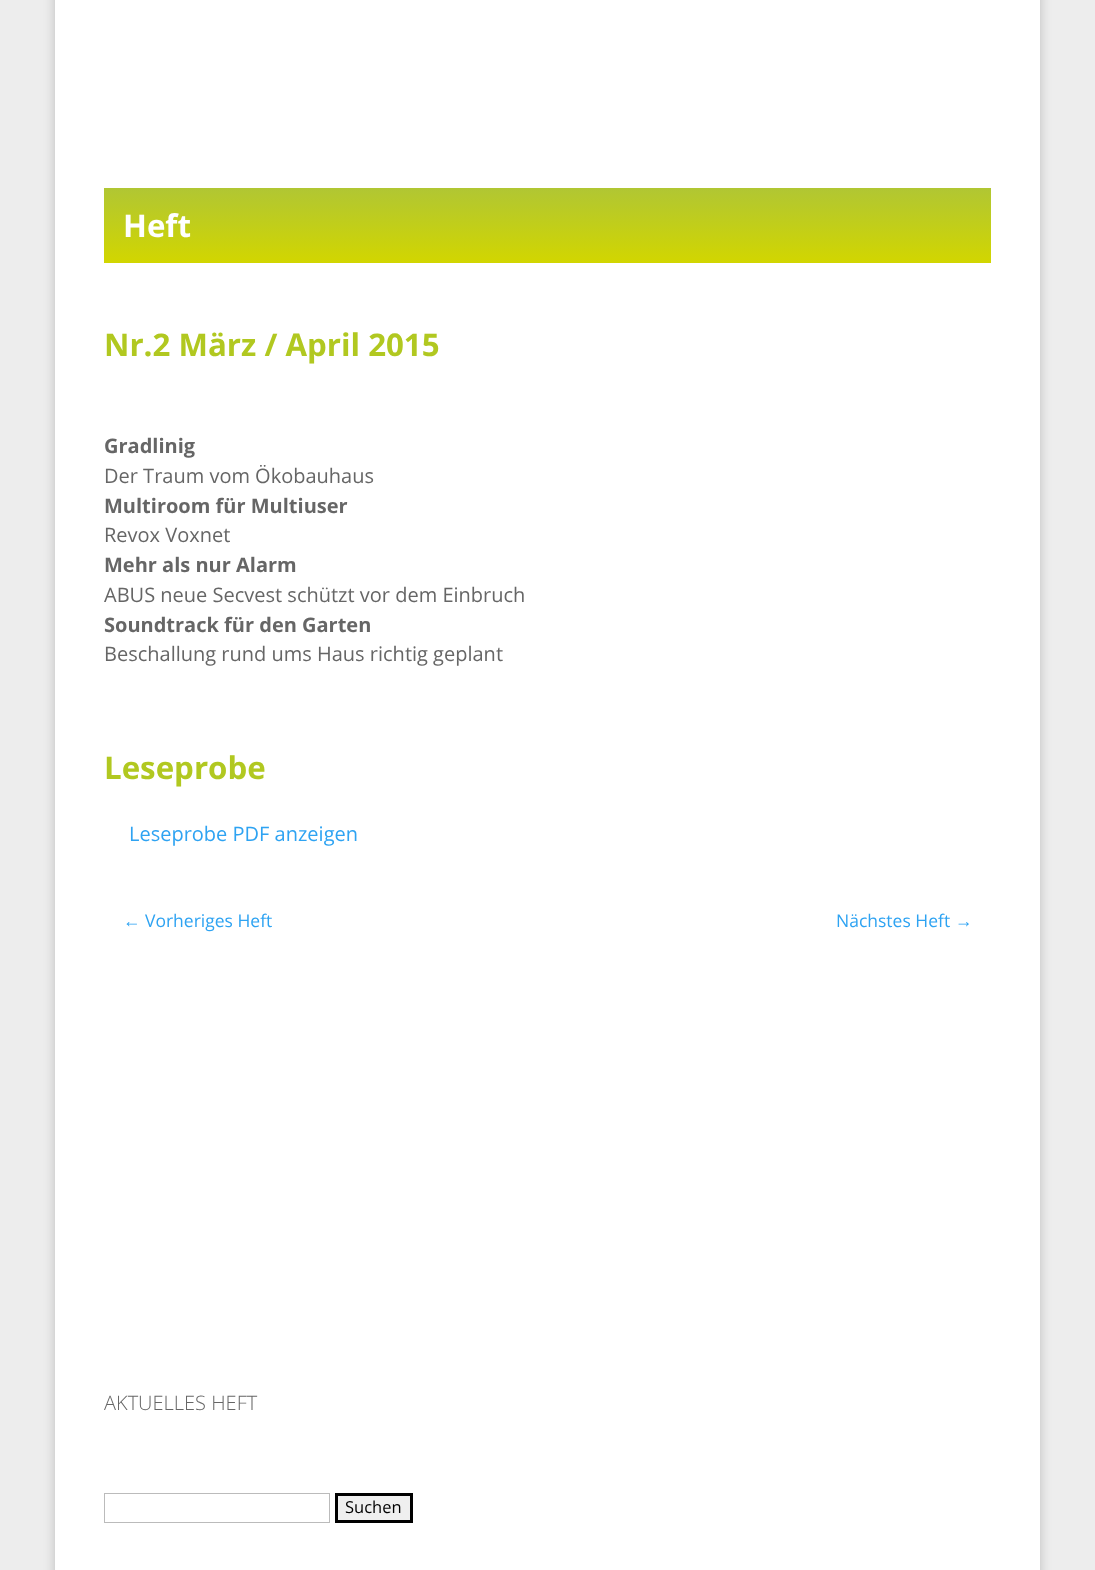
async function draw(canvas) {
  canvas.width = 1095;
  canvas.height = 1570;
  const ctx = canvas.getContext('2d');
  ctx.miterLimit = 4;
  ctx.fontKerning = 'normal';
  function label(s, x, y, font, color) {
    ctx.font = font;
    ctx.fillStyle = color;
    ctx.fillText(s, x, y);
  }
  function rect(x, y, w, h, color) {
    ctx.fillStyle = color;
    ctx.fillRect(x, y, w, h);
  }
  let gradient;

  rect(0, 0, 1095, 1570, '#ededed');
  ctx.fillStyle = '#00000033';
  ctx.filter = 'blur(6px)';
  ctx.beginPath();
  ctx.rect(55, -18, 985, 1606);
  ctx.fill();
  ctx.filter = 'none';
  rect(55, 0, 985, 1570, '#fff');
  gradient = ctx.createLinearGradient(548, 187, 548, 263);
  gradient.addColorStop(0, '#b0c634');
  gradient.addColorStop(1, '#d2d600');
  ctx.fillStyle = gradient;
  ctx.fillRect(104, 188, 887, 75);
  label('Heft', 123, 237, 'bold 31.25px Open Sans', '#fff');
  label('Nr.2 März / April 2015', 104, 356, 'bold 31.25px Open Sans', '#b1c820');
  label('Gradlinig', 104, 453, 'bold 20px Open Sans', '#666');
  label('Der Traum vom Ökobauhaus', 104, 483, '20px Open Sans', '#666');
  label('Multiroom für Multiuser', 104, 513, 'bold 20px Open Sans', '#666');
  label('Revox Voxnet', 104, 542, '20px Open Sans', '#666');
  label('Mehr als nur Alarm', 104, 572, 'bold 20px Open Sans', '#666');
  label('ABUS neue Secvest schützt vor dem Einbruch', 104, 602, '20px Open Sans', '#666');
  label('Soundtrack für den Garten', 104, 632, 'bold 20px Open Sans', '#666');
  label('Beschallung rund ums Haus richtig geplant', 104, 661, '20px Open Sans', '#666');
  label('Leseprobe', 104, 779, 'bold 31.25px Open Sans', '#b1c820');
  label('Leseprobe PDF anzeigen', 129, 841, '20px Open Sans', '#2ea3f2');
  label('←', 123, 927, '17.5px Liberation Sans', '#2ea3f2');
  label('Vorheriges Heft', 145, 927, '17.5px Open Sans', '#2ea3f2');
  label('Nächstes Heft', 836, 927, '17.5px Open Sans', '#2ea3f2');
  label('→', 955, 927, '17.5px Liberation Sans', '#2ea3f2');
  label('AKTUELLES HEFT', 104, 1410, '300 20px Open Sans', '#666');
  ctx.strokeStyle = '#bbb';
  ctx.strokeRect(104.5, 1493.5, 225, 29);
  ctx.fillStyle = '#efefef';
  ctx.beginPath();
  ctx.rect(336.5, 1494.5, 75, 27);
  ctx.fill();
  ctx.strokeStyle = '#000';
  ctx.lineWidth = 3;
  ctx.stroke();
  label('Suchen', 345, 1513, '16.5px Open Sans', '#000');
}

draw(document.querySelector('canvas'));
